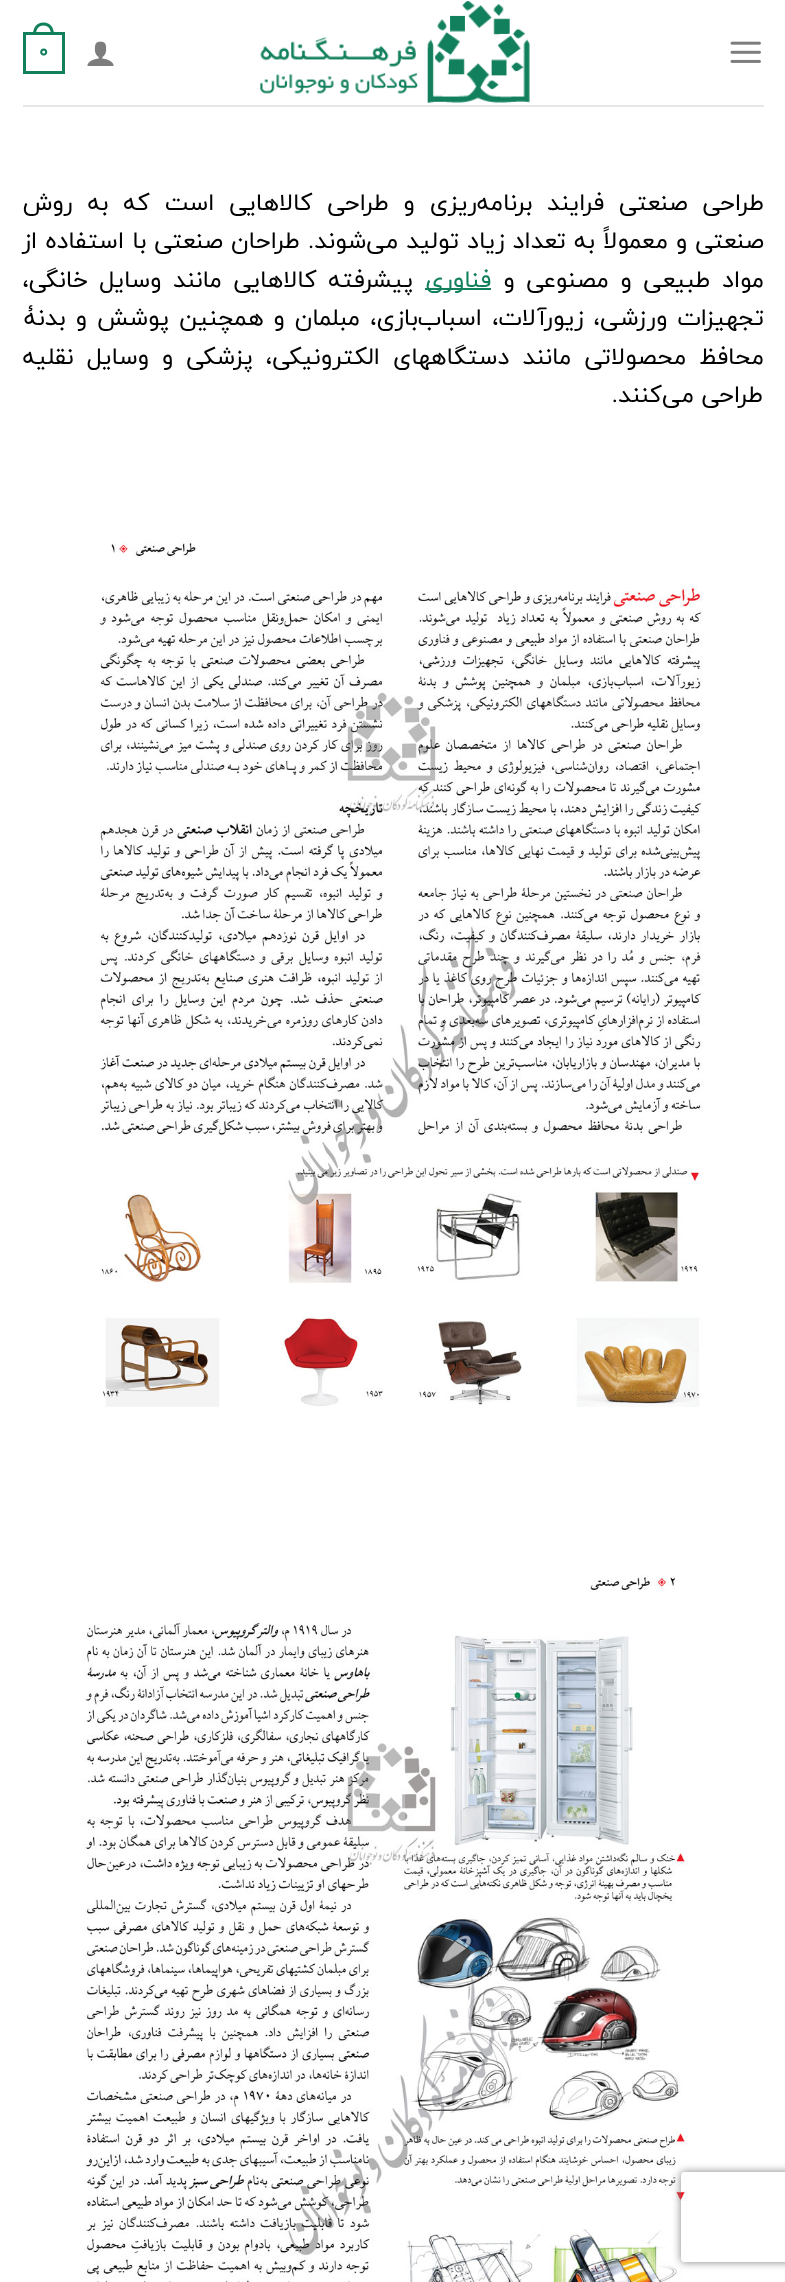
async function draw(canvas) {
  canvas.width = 785;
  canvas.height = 2282;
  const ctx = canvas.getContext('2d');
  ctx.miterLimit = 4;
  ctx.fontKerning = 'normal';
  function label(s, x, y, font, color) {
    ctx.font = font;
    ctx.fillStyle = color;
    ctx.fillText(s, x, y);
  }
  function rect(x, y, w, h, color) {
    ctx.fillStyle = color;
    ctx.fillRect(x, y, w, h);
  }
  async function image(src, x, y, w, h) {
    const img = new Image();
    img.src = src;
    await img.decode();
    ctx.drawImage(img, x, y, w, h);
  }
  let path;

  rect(0, 0, 785, 2282, '#fff');
  await image('assets/img1.png', 730, 41, 31, 22);
  await image('assets/img2.png', 260, 1, 270, 102);
  await image('assets/img3.png', 87, 41, 27, 25);
  ctx.strokeStyle = '#127f5d';
  ctx.lineWidth = 3;
  ctx.strokeRect(24.5, 33.5, 39, 39);
  ctx.fillStyle = '#127f5d';
  path = new Path2D('M43.5 22.5C50.5 22.5 54 28 54 34.5H33C33 28 36.5 22.5 43.5 22.5ZM43.5 25.5C49 25.5 51 30 51 34.5H36C36 30 38 25.5 43.5 25.5Z');
  ctx.fill(path, 'evenodd');
  label('0', 39, 57, 'bold 19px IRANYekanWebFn', '#127f5d');
  rect(23, 105, 741, 2, '#e6e6e6');
  ctx.wordSpacing = '7.25px';
  ctx.direction = 'rtl';
  label('طراحی صنعتی فرایند برنامه‌ريزی و طراحی کالاهایی است كه به ‌روش', 764, 210, '24px IRANYekanWebFn', '#020202');
  ctx.wordSpacing = '0.5px';
  label('صنعتی و معمولاً به تعداد زیاد', 764, 248, '24px IRANYekanWebFn', '#020202');
  label('توليد می‌شوند. طراحان صنعتی با استفاده از', 459, 248, '24px IRANYekanWebFn', '#020202');
  ctx.wordSpacing = '4px';
  label('مواد طبیعی و مصنوعی و', 764, 287, '24px IRANYekanWebFn', '#020202');
  rect(425, 288, 66, 2, '#127f5d');
  ctx.wordSpacing = '0px';
  label('فناوری', 491, 287, '24px IRANYekanWebFn', '#127f5d');
  ctx.wordSpacing = '4px';
  label('پیشرفته کالاهایی مانند وسایل خانگی،', 413, 287, '24px IRANYekanWebFn', '#020202');
  ctx.wordSpacing = '2.5px';
  label('تجهيزات ورزشی، زيورآلات، اسباب‌بازی، مبلمان و همچنین پوشش و بدنۀ', 764, 325, '24px IRANYekanWebFn', '#020202');
  ctx.wordSpacing = '5.5px';
  label('محافظ محصولاتی مانند دستگاههای الکترونیکی، پزشكی و وسایل نقلیه', 764, 364, '24px IRANYekanWebFn', '#020202');
  ctx.wordSpacing = '0px';
  label('طراحی می‌کنند.', 763, 402, '24px IRANYekanWebFn', '#020202');
  await image('assets/img4.png', 99, 541, 604, 866);
  await image('assets/img5.png', 83, 1575, 604, 707);
  ctx.save();
  path = new Path2D('M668 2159H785V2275H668ZM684 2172H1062C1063.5 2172 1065 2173.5 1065 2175V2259C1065 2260.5 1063.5 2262 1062 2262H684C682.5 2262 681 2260.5 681 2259V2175C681 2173.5 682.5 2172 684 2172Z');
  ctx.clip(path, 'evenodd');
  ctx.fillStyle = '#808080';
  ctx.filter = 'blur(4px)';
  ctx.beginPath();
  ctx.roundRect(681, 2172, 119, 90, 3);
  ctx.fill();
  ctx.filter = 'none';
  ctx.restore();
}

draw(document.querySelector('canvas'));
